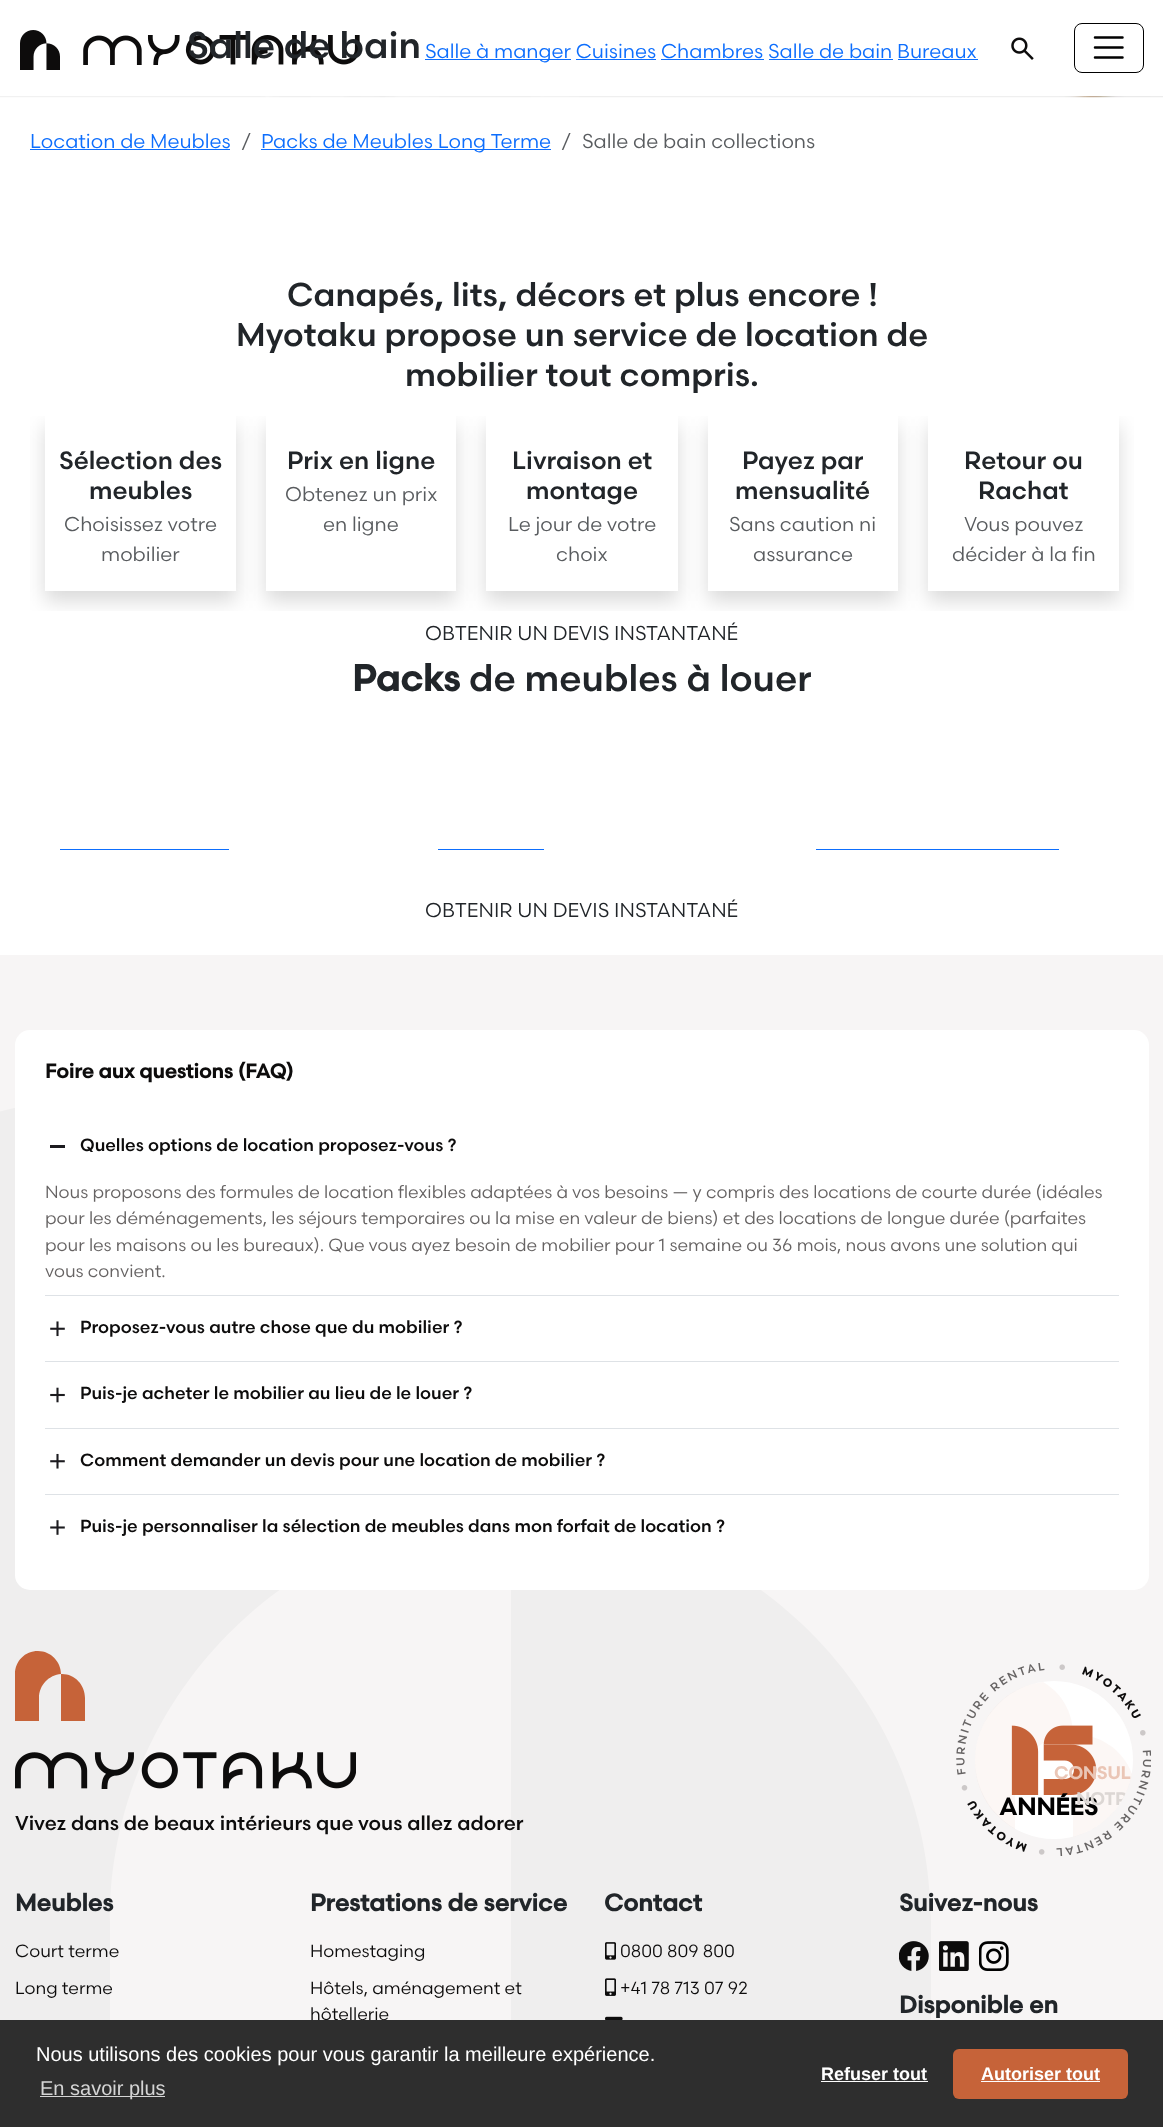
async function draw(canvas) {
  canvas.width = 1163;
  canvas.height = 2127;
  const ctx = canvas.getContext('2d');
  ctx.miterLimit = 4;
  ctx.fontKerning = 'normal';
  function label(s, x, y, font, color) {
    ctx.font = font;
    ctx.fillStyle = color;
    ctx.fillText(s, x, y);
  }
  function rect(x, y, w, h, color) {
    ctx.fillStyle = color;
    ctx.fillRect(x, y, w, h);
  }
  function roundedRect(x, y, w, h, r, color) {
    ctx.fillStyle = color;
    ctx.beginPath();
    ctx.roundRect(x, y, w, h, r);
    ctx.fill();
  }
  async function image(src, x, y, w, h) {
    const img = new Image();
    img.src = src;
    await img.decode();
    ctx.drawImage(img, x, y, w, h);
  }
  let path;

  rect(0, 0, 1163, 2127, '#fff');
  await image('assets/img1.png', 20, 30, 340, 40);
  await image('assets/img2.png', 1011, 37, 23, 23);
  ctx.beginPath();
  ctx.roundRect(1074.5, 23.5, 69, 49, 7.5);
  ctx.strokeStyle = '#000';
  ctx.stroke();
  path = new Path2D('M1095 37.5H1122.5M1095 47.5H1122.5M1095 57.5H1122.5');
  ctx.lineWidth = 2.5;
  ctx.lineCap = 'round';
  ctx.stroke(path);
  await image('assets/img3.png', 0, 96, 1163, 2);
  label('Salle de bain', 187, 58, '500 37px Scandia', '#212529');
  rect(425, 59, 146, 1, '#0d6efd');
  label('Salle à manger Cuisines Chambres Salle de bain Bureaux', 425, 58, '20px Scandia', '#0d6efd');
  rect(576, 59, 80, 1, '#0d6efd');
  rect(661, 59, 103, 1, '#0d6efd');
  rect(769, 59, 124, 1, '#0d6efd');
  rect(898, 59, 80, 1, '#0d6efd');
  label('Location de Meubles', 30, 148, '20px Scandia', '#0d6efd');
  rect(30, 149, 200, 1, '#0d6efd');
  label('/', 241, 148, '20px Scandia', '#595c5f');
  rect(261, 149, 290, 1, '#0d6efd');
  label('Packs de Meubles Long Terme', 261, 148, '20px Scandia', '#0d6efd');
  label('/', 561, 148, '20px Scandia', '#595c5f');
  label('Salle de bain collections', 582, 148, '20px Scandia', '#595c5f');
  label('Canapés, lits, décors et plus encore !', 287, 306, '500 33px Scandia', '#212529');
  label('Myotaku propose un service de location de', 236, 346, '500 33px Scandia', '#212529');
  label('mobilier tout compris.', 405, 386, '500 33px Scandia', '#212529');
  ctx.save();
  ctx.beginPath();
  ctx.rect(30, 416, 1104, 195);
  ctx.clip();
  ctx.fillStyle = '#00000026';
  ctx.filter = 'blur(10px)';
  ctx.beginPath();
  ctx.rect(45, 426, 191, 175);
  ctx.fill();
  ctx.filter = 'none';
  ctx.restore();
  rect(45, 416, 191, 175, '#fff');
  label('Sélection des', 59, 469, '500 25px Scandia', '#212529');
  label('meubles', 89, 499, '500 25px Scandia', '#212529');
  label('Choisissez votre', 64, 531, '20px Scandia', '#595c5f');
  label('mobilier', 101, 561, '20px Scandia', '#595c5f');
  ctx.save();
  ctx.beginPath();
  ctx.rect(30, 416, 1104, 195);
  ctx.clip();
  ctx.fillStyle = '#00000026';
  ctx.filter = 'blur(10px)';
  ctx.beginPath();
  ctx.rect(266, 426, 190, 175);
  ctx.fill();
  ctx.filter = 'none';
  ctx.restore();
  rect(266, 416, 190, 175, '#fff');
  label('Prix en ligne', 287, 469, '500 25px Scandia', '#212529');
  label('Obtenez un prix', 285, 501, '20px Scandia', '#595c5f');
  label('en ligne', 323, 531, '20px Scandia', '#595c5f');
  ctx.save();
  ctx.beginPath();
  ctx.rect(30, 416, 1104, 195);
  ctx.clip();
  ctx.fillStyle = '#00000026';
  ctx.filter = 'blur(10px)';
  ctx.beginPath();
  ctx.rect(486, 426, 192, 175);
  ctx.fill();
  ctx.filter = 'none';
  ctx.restore();
  rect(486, 416, 192, 175, '#fff');
  label('Livraison et', 512, 469, '500 25px Scandia', '#212529');
  label('montage', 526, 499, '500 25px Scandia', '#212529');
  label('Le jour de votre', 508, 531, '20px Scandia', '#595c5f');
  label('choix', 556, 561, '20px Scandia', '#595c5f');
  ctx.save();
  ctx.beginPath();
  ctx.rect(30, 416, 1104, 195);
  ctx.clip();
  ctx.fillStyle = '#00000026';
  ctx.filter = 'blur(10px)';
  ctx.beginPath();
  ctx.rect(708, 426, 190, 175);
  ctx.fill();
  ctx.filter = 'none';
  ctx.restore();
  rect(708, 416, 190, 175, '#fff');
  label('Payez par', 742, 469, '500 25px Scandia', '#212529');
  label('mensualité', 735, 499, '500 25px Scandia', '#212529');
  label('Sans caution ni', 729, 531, '20px Scandia', '#595c5f');
  label('assurance', 753, 561, '20px Scandia', '#595c5f');
  ctx.save();
  ctx.beginPath();
  ctx.rect(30, 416, 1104, 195);
  ctx.clip();
  ctx.fillStyle = '#00000026';
  ctx.filter = 'blur(10px)';
  ctx.beginPath();
  ctx.rect(928, 426, 191, 175);
  ctx.fill();
  ctx.filter = 'none';
  ctx.restore();
  rect(928, 416, 191, 175, '#fff');
  label('Retour ou', 964, 469, '500 25px Scandia', '#212529');
  label('Rachat', 978, 499, '500 25px Scandia', '#212529');
  label('Vous pouvez', 964, 531, '20px Scandia', '#595c5f');
  label('décider à la fin', 952, 561, '20px Scandia', '#595c5f');
  label('OBTENIR UN DEVIS INSTANTANÉ', 425, 640, '20px Scandia', '#212529');
  label('Packs', 352, 691, 'bold 37px Scandia', '#212529');
  label('de meubles à louer', 469, 691, '500 37px Scandia', '#212529');
  rect(60, 849, 169, 1, '#0d6efd');
  rect(438, 849, 106, 1, '#0d6efd');
  rect(816, 849, 243, 1, '#0d6efd');
  label('OBTENIR UN DEVIS INSTANTANÉ', 425, 917, '20px Scandia', '#212529');
  rect(0, 955, 1163, 1065, '#f7f5f5');
  ctx.fillStyle = '#efeeee';
  path = new Path2D('M101 1099C-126 1099-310 1282-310 1509V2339H931V1922C931 1696 747 1512 520 1512H511V1509C511 1282 327 1099 101 1099ZM511 1512C289 1517 110 1699 110 1922V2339H511Z');
  ctx.fill(path, 'evenodd');
  roundedRect(15, 1030, 1134, 560, 15, '#fff');
  label('Foire aux questions (FAQ)', 45, 1078, 'bold 20px Scandia', '#0d0c0c');
  rect(45, 1295, 1074, 1, '#dee2e6');
  rect(50, 1145, 15, 3, '#1c1b1f');
  label('Quelles options de location proposez-vous ?', 80, 1151, '500 17.6px Scandia', '#0d0c0c');
  label('Nous proposons des formules de location flexibles adaptées à vos besoins — y compris des locations de courte durée (idéales', 45, 1198, '17.6px Scandia', '#666363');
  label('pour les déménagements, les séjours temporaires ou la mise en valeur de biens) et des locations de longue durée (parfaites', 45, 1224, '17.6px Scandia', '#666363');
  label('pour les maisons ou les bureaux). Que vous ayez besoin de mobilier pour 1 semaine ou 36 mois, nous avons une solution qui', 45, 1251, '17.6px Scandia', '#666363');
  label('vous convient.', 45, 1277, '17.6px Scandia', '#666363');
  rect(45, 1361, 1074, 1, '#dee2e6');
  await image('assets/img4.png', 50, 1321, 15, 16);
  label('Proposez-vous autre chose que du mobilier ?', 80, 1333, '500 17.6px Scandia', '#0d0c0c');
  rect(45, 1428, 1074, 1, '#dee2e6');
  await image('assets/img5.png', 50, 1387, 15, 16);
  label('Puis-je acheter le mobilier au lieu de le louer ?', 80, 1399, '500 17.6px Scandia', '#0d0c0c');
  rect(45, 1494, 1074, 1, '#dee2e6');
  await image('assets/img6.png', 50, 1453, 15, 16);
  label('Comment demander un devis pour une location de mobilier ?', 80, 1466, '500 17.6px Scandia', '#0d0c0c');
  await image('assets/img7.png', 50, 1520, 15, 15);
  label('Puis-je personnaliser la sélection de meubles dans mon forfait de location ?', 80, 1532, '500 17.6px Scandia', '#0d0c0c');
  ctx.fillStyle = '#fff';
  ctx.beginPath();
  ctx.arc(1054, 1760, 79, 0, 2 * Math.PI);
  ctx.fill();
  ctx.fillStyle = '#c663390d';
  path = new Path2D('M1073 1734V1837C1103 1829 1126 1805 1132 1774C1123 1749 1099 1734 1073 1734C1073 1712 1061 1692 1043 1682C968 1692 950 1792 1015 1829V1794C1015 1761 1041 1735 1073 1734Z');
  ctx.fill(path);
  await image('assets/img9.png', 1011, 1725, 86, 70);
  label('CONSUL', 1054, 1779, 'bold 17.6px Scandia', '#eac6b6');
  label('ANNÉES', 999, 1815, 'bold 24px Scandia', '#000');
  ctx.save();
  ctx.beginPath();
  ctx.roundRect(975, 1681, 158, 158, 79);
  ctx.clip();
  label('NOTR', 1076, 1805, 'bold 17.6px Scandia', '#dcd7d4');
  ctx.restore();
  await image('assets/img8.png', 956, 1663, 195, 193);
  ctx.fillStyle = '#c66339';
  path = new Path2D('M38 1651C25 1651 15 1661 15 1674V1721H85V1698C85 1685 75 1674 62 1674H61C61 1662 51 1651 38 1651ZM61 1674C49 1675 39 1685 39 1698V1721H61Z');
  ctx.fill(path, 'evenodd');
  await image('assets/img10.png', 15, 1752, 341, 37);
  label('Vivez dans de beaux intérieurs que vous allez adorer', 15, 1830, '500 20px Scandia', '#0d0c0c');
  label('Meubles', 15, 1911, 'bold 24px Scandia', '#212529');
  label('Court terme', 15, 1957, '17.6px Scandia', '#0d0c0c');
  label('Long terme', 15, 1994, '17.6px Scandia', '#0d0c0c');
  label('Prestations de service', 310, 1911, 'bold 24px Scandia', '#212529');
  label('Homestaging', 310, 1957, '17.6px Scandia', '#0d0c0c');
  label('Hôtels, aménagement et', 310, 1994, '17.6px Scandia', '#0d0c0c');
  label('hôtellerie', 310, 2020, '17.6px Scandia', '#0d0c0c');
  label('Contact', 604, 1911, 'bold 24px Scandia', '#212529');
  await image('assets/img11.png', 605, 1942, 11, 18);
  label('0800 809 800', 620, 1957, '17.6px Scandia', '#0d0c0c');
  await image('assets/img12.png', 605, 1978, 11, 18);
  label('+41 78 713 07 92', 620, 1994, '17.6px Scandia', '#0d0c0c');
  await image('assets/img13.png', 605, 2016, 18, 4);
  label('Suivez-nous', 899, 1911, 'bold 24px Scandia', '#212529');
  await image('assets/img14.png', 899, 1941, 30, 30);
  await image('assets/img15.png', 939, 1941, 30, 30);
  await image('assets/img16.png', 979, 1941, 30, 30);
  label('Disponible en', 899, 2013, 'bold 24px Scandia', '#212529');
  rect(0, 2020, 1163, 107, '#2e2e2e');
  label('Nous utilisons des cookies pour vous garantir la meilleure expérience.', 36, 2061, '20px Liberation Sans', '#fff');
  rect(40, 2096, 125, 1, '#d5d5d5');
  label('En savoir plus', 40, 2095, '20px Liberation Sans', '#d5d5d5');
  label('Refuser tout', 821, 2080, 'bold 18px Liberation Sans', '#fff');
  rect(821, 2081, 107, 1, '#fff');
  roundedRect(953, 2049, 175, 50, 6, '#c66339');
  label('Autoriser tout', 981, 2080, 'bold 18px Liberation Sans', '#fff');
  rect(981, 2081, 119, 1, '#fff');
}

draw(document.querySelector('canvas'));
